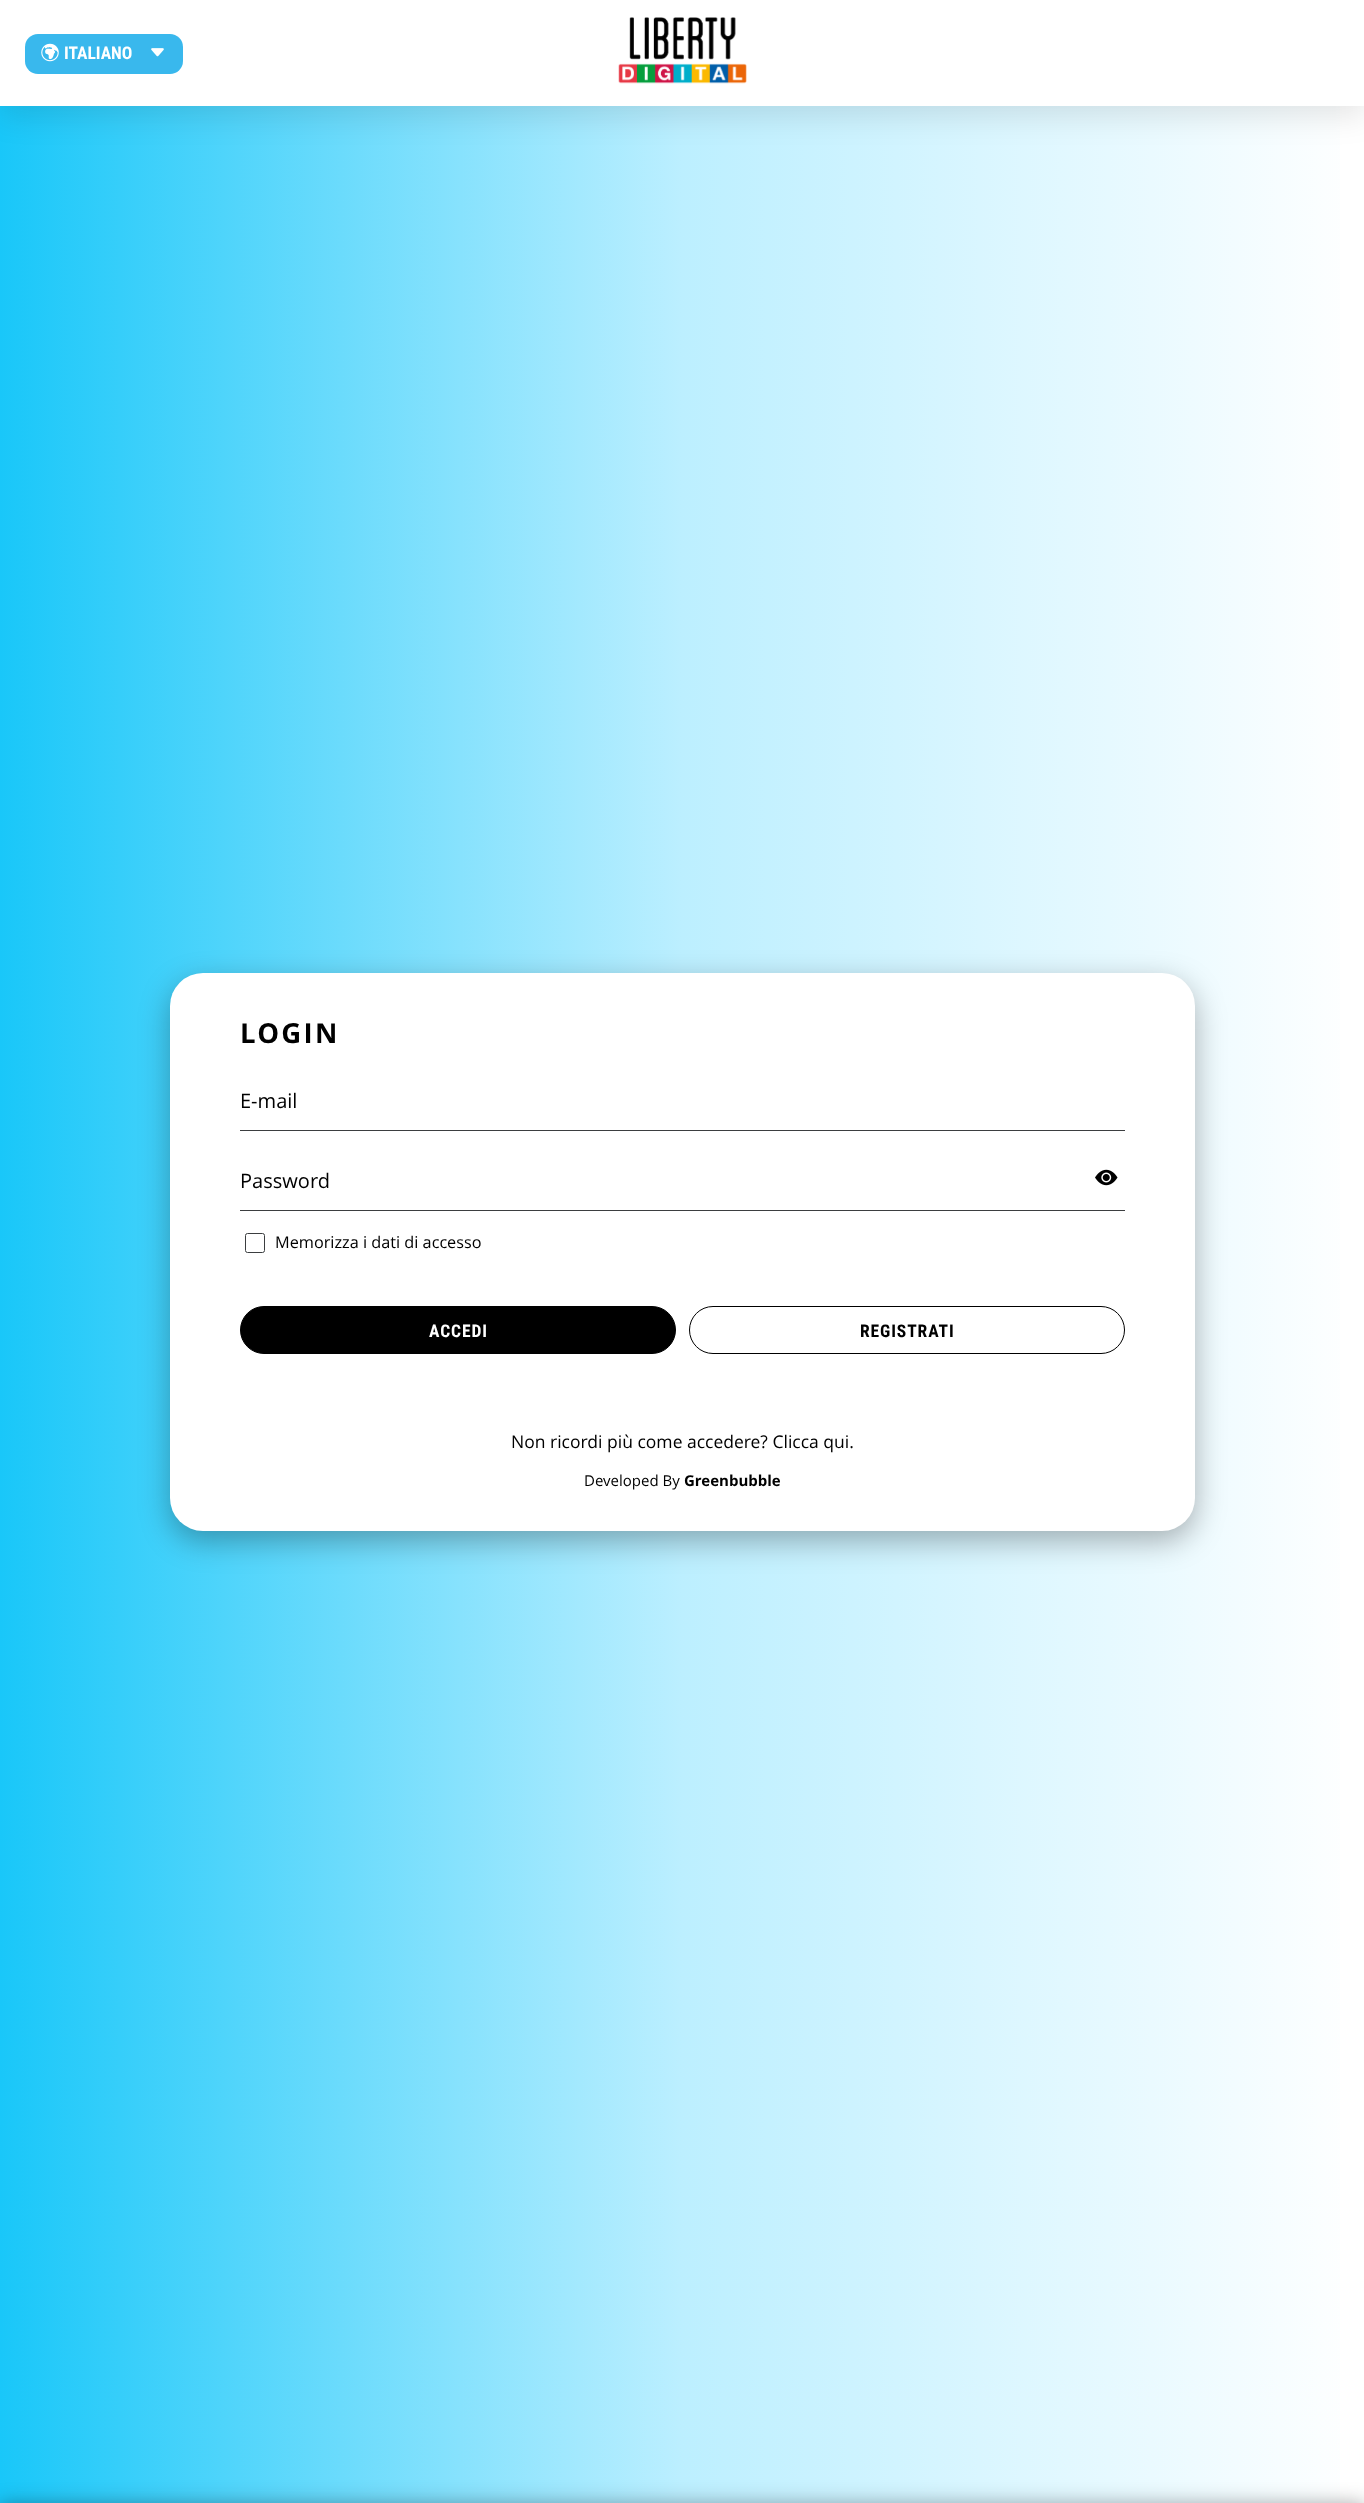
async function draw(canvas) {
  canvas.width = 1364;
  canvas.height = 2503;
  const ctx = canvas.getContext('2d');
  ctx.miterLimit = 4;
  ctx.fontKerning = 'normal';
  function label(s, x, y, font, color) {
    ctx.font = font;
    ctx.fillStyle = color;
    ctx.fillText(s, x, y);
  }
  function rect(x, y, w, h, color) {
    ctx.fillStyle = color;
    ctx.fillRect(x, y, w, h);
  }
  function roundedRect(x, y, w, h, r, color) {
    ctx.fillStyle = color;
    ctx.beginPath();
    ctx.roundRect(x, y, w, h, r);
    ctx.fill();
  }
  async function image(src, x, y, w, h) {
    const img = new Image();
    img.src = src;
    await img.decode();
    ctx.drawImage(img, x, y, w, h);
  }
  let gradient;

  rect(0, 0, 1364, 2503, '#fff');
  gradient = ctx.createLinearGradient(0, 1252, 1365, 1252);
  gradient.addColorStop(0, '#19c7f9');
  gradient.addColorStop(0.5, '#bcefff');
  gradient.addColorStop(1, '#fff');
  ctx.fillStyle = gradient;
  ctx.fillRect(0, 106, 1340, 2397);
  ctx.fillStyle = '#0000001a';
  ctx.filter = 'blur(15px)';
  ctx.beginPath();
  ctx.rect(0, 10, 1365, 106);
  ctx.fill();
  ctx.filter = 'none';
  rect(0, 0, 1364, 106, '#fff');
  roundedRect(25, 34, 158, 40, 13, '#39b8ed');
  await image('assets/img1.png', 41, 43, 18, 19);
  label('ITALIANO', 64, 59, 'bold 17.5px Roboto Condensed', '#fff');
  await image('assets/img2.png', 151, 48, 13, 9);
  await image('assets/img3.png', 618, 17, 129, 67);
  ctx.fillStyle = '#0000004d';
  ctx.filter = 'blur(15px)';
  ctx.beginPath();
  ctx.roundRect(170, 983, 1025, 558, 33);
  ctx.fill();
  ctx.filter = 'none';
  roundedRect(170, 973, 1025, 558, 33, '#fff');
  ctx.letterSpacing = '2.25px';
  label('LOGIN', 240, 1043, 'bold 27.5px Open Sans', '#000');
  ctx.letterSpacing = '0px';
  label('E-mail', 240, 1108, '20px Open Sans', '#000');
  rect(240, 1130, 885, 1, '#3b3e40');
  label('Password', 240, 1188, '20px Open Sans', '#000');
  await image('assets/img4.png', 1095, 1169, 23, 17);
  rect(240, 1210, 885, 1, '#3b3e40');
  ctx.beginPath();
  ctx.roundRect(245.5, 1233.5, 19, 19, 2);
  ctx.strokeStyle = '#3b3e40';
  ctx.stroke();
  label('Memorizza i dati di accesso', 275, 1248, '16.25px Open Sans', '#000');
  ctx.beginPath();
  ctx.roundRect(240.5, 1306.5, 435, 47, 23.5);
  ctx.fill();
  ctx.strokeStyle = '#000';
  ctx.stroke();
  ctx.letterSpacing = '0.9px';
  label('ACCEDI', 429, 1337, 'bold 17.5px Roboto Condensed', '#fff');
  ctx.beginPath();
  ctx.roundRect(689.5, 1306.5, 435, 47, 23.5);
  ctx.stroke();
  label('REGISTRATI', 860, 1337, 'bold 17.5px Roboto Condensed', '#000');
  ctx.letterSpacing = '0px';
  label('Non ricordi più come accedere? Clicca qui.', 511, 1448, '17.5px Open Sans', '#000');
  label('Developed By', 584, 1486, '15px Open Sans', '#000');
  label('Greenbubble', 684, 1486, 'bold 15px Open Sans', '#000');
  ctx.fillStyle = '#00000059';
  ctx.filter = 'blur(10px)';
  ctx.beginPath();
  ctx.rect(0, 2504, 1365, 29);
  ctx.fill();
  ctx.filter = 'none';
}

draw(document.querySelector('canvas'));
